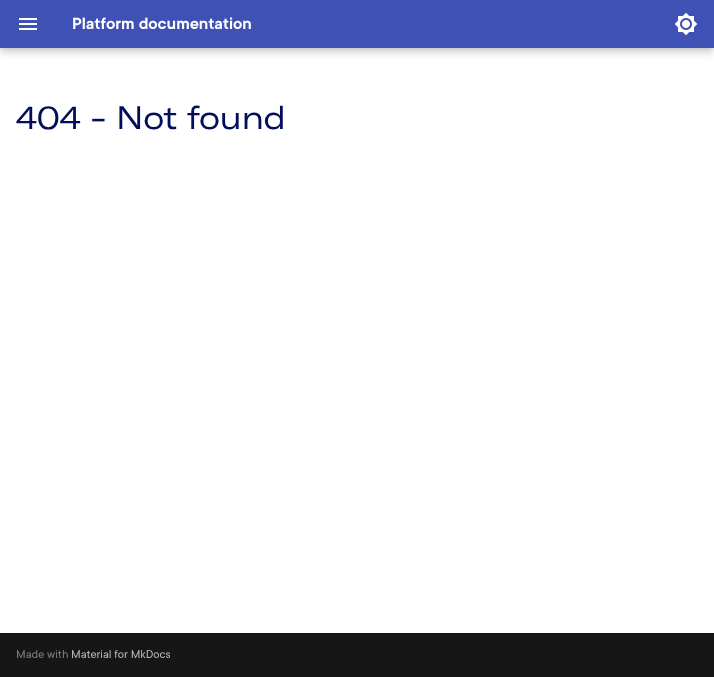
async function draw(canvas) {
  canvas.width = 714;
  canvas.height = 677;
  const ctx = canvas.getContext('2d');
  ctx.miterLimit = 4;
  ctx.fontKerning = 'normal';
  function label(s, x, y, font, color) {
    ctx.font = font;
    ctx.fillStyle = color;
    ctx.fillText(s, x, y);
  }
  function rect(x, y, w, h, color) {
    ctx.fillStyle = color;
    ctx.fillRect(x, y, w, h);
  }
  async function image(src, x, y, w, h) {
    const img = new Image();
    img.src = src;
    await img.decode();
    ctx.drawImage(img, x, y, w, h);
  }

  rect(0, 0, 714, 677, '#fff');
  ctx.fillStyle = '#00000033';
  ctx.filter = 'blur(4px)';
  ctx.beginPath();
  ctx.rect(0, 4, 714, 48);
  ctx.fill();
  ctx.filter = 'none';
  ctx.fillStyle = '#0000001a';
  ctx.filter = 'blur(2px)';
  ctx.beginPath();
  ctx.rect(0, 0, 714, 48);
  ctx.fill();
  ctx.filter = 'none';
  rect(0, 0, 714, 48, '#4051b5');
  await image('assets/img1.png', 19, 18, 18, 12);
  label('Platform documentation', 72, 29, '600 18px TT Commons', '#fff');
  await image('assets/img2.png', 674, 12, 24, 24);
  ctx.letterSpacing = '-0.3px';
  label('404 - Not found', 16, 129, '32px GT America', '#000e5c');
  rect(0, 633, 714, 44, '#161616');
  ctx.letterSpacing = '0px';
  label('Made with', 16, 658, '12.75px TT Commons', '#7f7f7f');
  label('Material for MkDocs', 71, 658, '12.75px TT Commons', '#b9b9b9');
}

draw(document.querySelector('canvas'));
